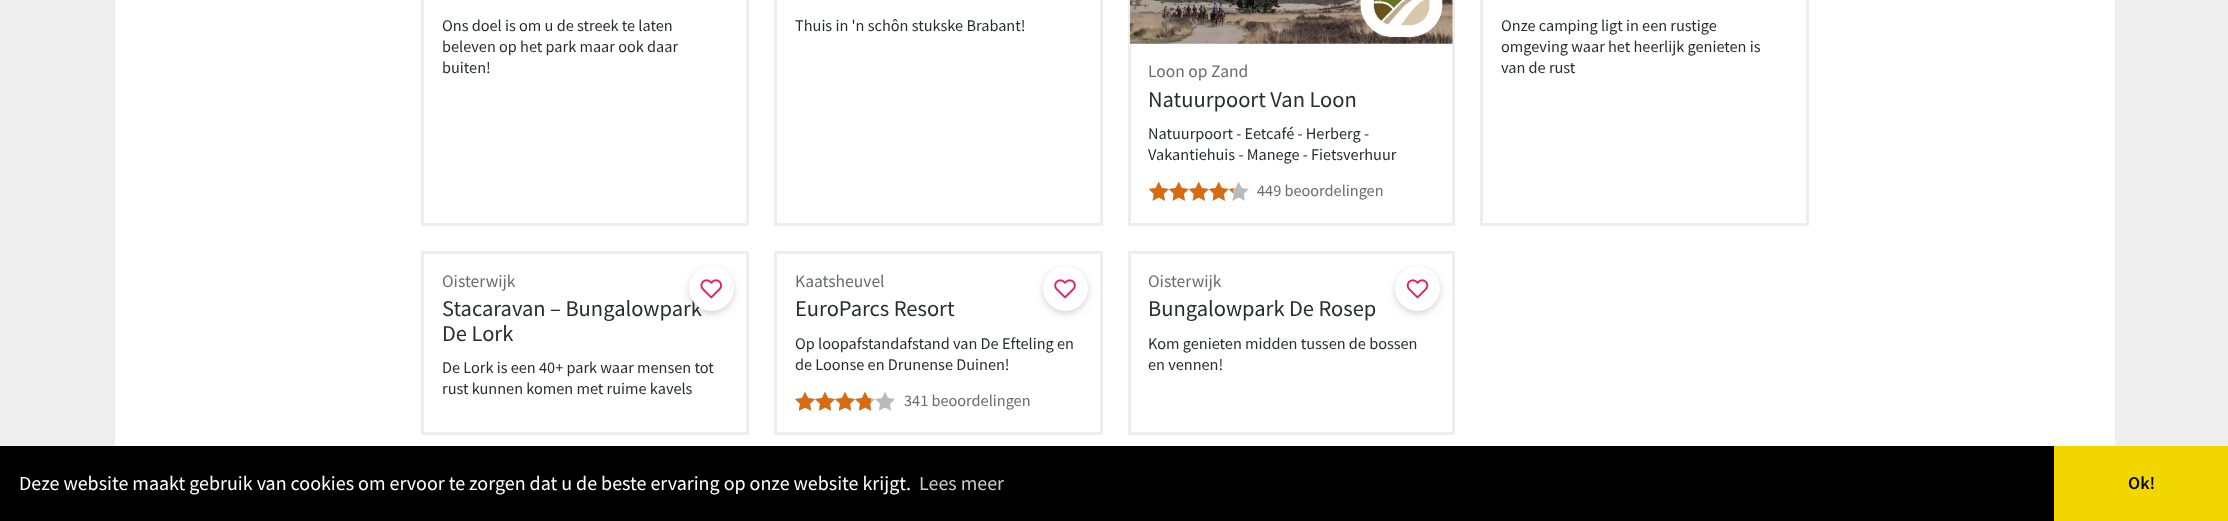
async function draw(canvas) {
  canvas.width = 2228;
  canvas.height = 521;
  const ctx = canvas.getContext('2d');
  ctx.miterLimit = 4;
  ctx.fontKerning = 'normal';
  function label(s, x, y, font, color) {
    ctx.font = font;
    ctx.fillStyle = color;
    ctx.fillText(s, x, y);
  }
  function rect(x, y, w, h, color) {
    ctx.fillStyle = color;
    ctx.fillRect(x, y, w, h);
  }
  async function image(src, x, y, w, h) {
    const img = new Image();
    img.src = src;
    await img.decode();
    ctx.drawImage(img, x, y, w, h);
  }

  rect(0, 0, 2228, 521, '#eee');
  rect(115, 0, 2000, 446, '#fff');
  ctx.strokeStyle = '#eee';
  ctx.lineWidth = 3;
  ctx.strokeRect(422.5, -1.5, 325, 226);
  label('Ons doel is om u de streek te laten', 442, 31, '16.25px Source Sans Pro', '#2a2d2e');
  label('beleven op het park maar ook daar', 442, 52, '16.25px Source Sans Pro', '#2a2d2e');
  label('buiten!', 442, 73, '16.25px Source Sans Pro', '#2a2d2e');
  ctx.strokeRect(775.5, -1.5, 326, 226);
  label('Thuis in \'n schôn stukske Brabant!', 795, 31, '16.25px Source Sans Pro', '#2a2d2e');
  ctx.strokeRect(1481.5, -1.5, 326, 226);
  label('Onze camping ligt in een rustige', 1501, 31, '16.25px Source Sans Pro', '#2a2d2e');
  label('omgeving waar het heerlijk genieten is', 1501, 52, '16.25px Source Sans Pro', '#2a2d2e');
  label('van de rust', 1501, 73, '16.25px Source Sans Pro', '#2a2d2e');
  ctx.strokeRect(1129.5, -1.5, 324, 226);
  await image('assets/img1.png', 1130, 0, 323, 44);
  label('Loon op Zand', 1148, 77, '17.5px Source Sans Pro', '#6a6c6d');
  label('Natuurpoort Van Loon', 1148, 107, '22.5px Source Sans Pro', '#2a2d2e');
  label('Natuurpoort - Eetcafé - Herberg -', 1148, 139, '16.25px Source Sans Pro', '#2a2d2e');
  label('Vakantiehuis - Manege - Fietsverhuur', 1148, 160, '16.25px Source Sans Pro', '#2a2d2e');
  await image('assets/img3.png', 1149, 182, 100, 19);
  await image('assets/img2.png', 1149, 181, 84, 20);
  label('449 beoordelingen', 1257, 196, '16.25px Source Sans Pro', '#6a6c6d');
  ctx.strokeRect(422.5, 252.5, 325, 181);
  ctx.fillStyle = '#00000014';
  ctx.filter = 'blur(2px)';
  ctx.beginPath();
  ctx.roundRect(689, 268, 45, 45, 22.5);
  ctx.fill();
  ctx.filter = 'none';
  ctx.fillStyle = '#0000001a';
  ctx.filter = 'blur(5px)';
  ctx.beginPath();
  ctx.roundRect(689, 269, 45, 45, 22.5);
  ctx.fill();
  ctx.filter = 'none';
  label('Stacaravan – Bungalowpark', 442, 316, '22.5px Source Sans Pro', '#2a2d2e');
  ctx.fillStyle = '#fff';
  ctx.beginPath();
  ctx.arc(711.5, 288.5, 22.5, 0, 2 * Math.PI);
  ctx.fill();
  await image('assets/img4.png', 700, 279, 22, 20);
  label('Oisterwijk', 442, 287, '17.5px Source Sans Pro', '#6a6c6d');
  label('De Lork', 442, 341, '22.5px Source Sans Pro', '#2a2d2e');
  label('De Lork is een 40+ park waar mensen tot', 442, 373, '16.25px Source Sans Pro', '#2a2d2e');
  label('rust kunnen komen met ruime kavels', 442, 394, '16.25px Source Sans Pro', '#2a2d2e');
  ctx.strokeRect(775.5, 252.5, 326, 181);
  ctx.fillStyle = '#00000014';
  ctx.filter = 'blur(2px)';
  ctx.beginPath();
  ctx.roundRect(1043, 268, 45, 45, 22.5);
  ctx.fill();
  ctx.filter = 'none';
  ctx.fillStyle = '#0000001a';
  ctx.filter = 'blur(5px)';
  ctx.beginPath();
  ctx.roundRect(1043, 269, 45, 45, 22.5);
  ctx.fill();
  ctx.filter = 'none';
  ctx.fillStyle = '#fff';
  ctx.beginPath();
  ctx.arc(1065.5, 288.5, 22.5, 0, 2 * Math.PI);
  ctx.fill();
  await image('assets/img5.png', 1054, 279, 22, 20);
  label('Kaatsheuvel', 795, 287, '17.5px Source Sans Pro', '#6a6c6d');
  label('EuroParcs Resort', 795, 316, '22.5px Source Sans Pro', '#2a2d2e');
  label('Op loopafstandafstand van De Efteling en', 795, 349, '16.25px Source Sans Pro', '#2a2d2e');
  label('de Loonse en Drunense Duinen!', 795, 370, '16.25px Source Sans Pro', '#2a2d2e');
  await image('assets/img6.png', 795, 392, 100, 19);
  await image('assets/img7.png', 795, 392, 76, 19);
  label('341 beoordelingen', 904, 406, '16.25px Source Sans Pro', '#6a6c6d');
  ctx.strokeRect(1129.5, 252.5, 324, 181);
  label('Oisterwijk', 1148, 287, '17.5px Source Sans Pro', '#6a6c6d');
  label('Bungalowpark De Rosep', 1148, 316, '22.5px Source Sans Pro', '#2a2d2e');
  label('Kom genieten midden tussen de bossen', 1148, 349, '16.25px Source Sans Pro', '#2a2d2e');
  label('en vennen!', 1148, 370, '16.25px Source Sans Pro', '#2a2d2e');
  ctx.fillStyle = '#00000014';
  ctx.filter = 'blur(2px)';
  ctx.beginPath();
  ctx.roundRect(1395, 268, 45, 45, 22.5);
  ctx.fill();
  ctx.filter = 'none';
  ctx.fillStyle = '#0000001a';
  ctx.filter = 'blur(5px)';
  ctx.beginPath();
  ctx.roundRect(1395, 269, 45, 45, 22.5);
  ctx.fill();
  ctx.filter = 'none';
  ctx.fillStyle = '#fff';
  ctx.beginPath();
  ctx.arc(1417.5, 288.5, 22.5, 0, 2 * Math.PI);
  ctx.fill();
  await image('assets/img8.png', 1406, 279, 23, 20);
  rect(0, 446, 2054, 75, '#000');
  label('Deze website maakt gebruik van cookies om ervoor te zorgen dat u de beste ervaring op onze website krijgt.', 19, 490, '20px Source Sans Pro', '#fff');
  label('Lees meer', 919, 490, '20px Source Sans Pro', '#ccc');
  rect(2054, 446, 174, 75, '#f1d600');
  label('Ok!', 2128, 489, '600 18px Source Sans Pro', '#000');
}

draw(document.querySelector('canvas'));
